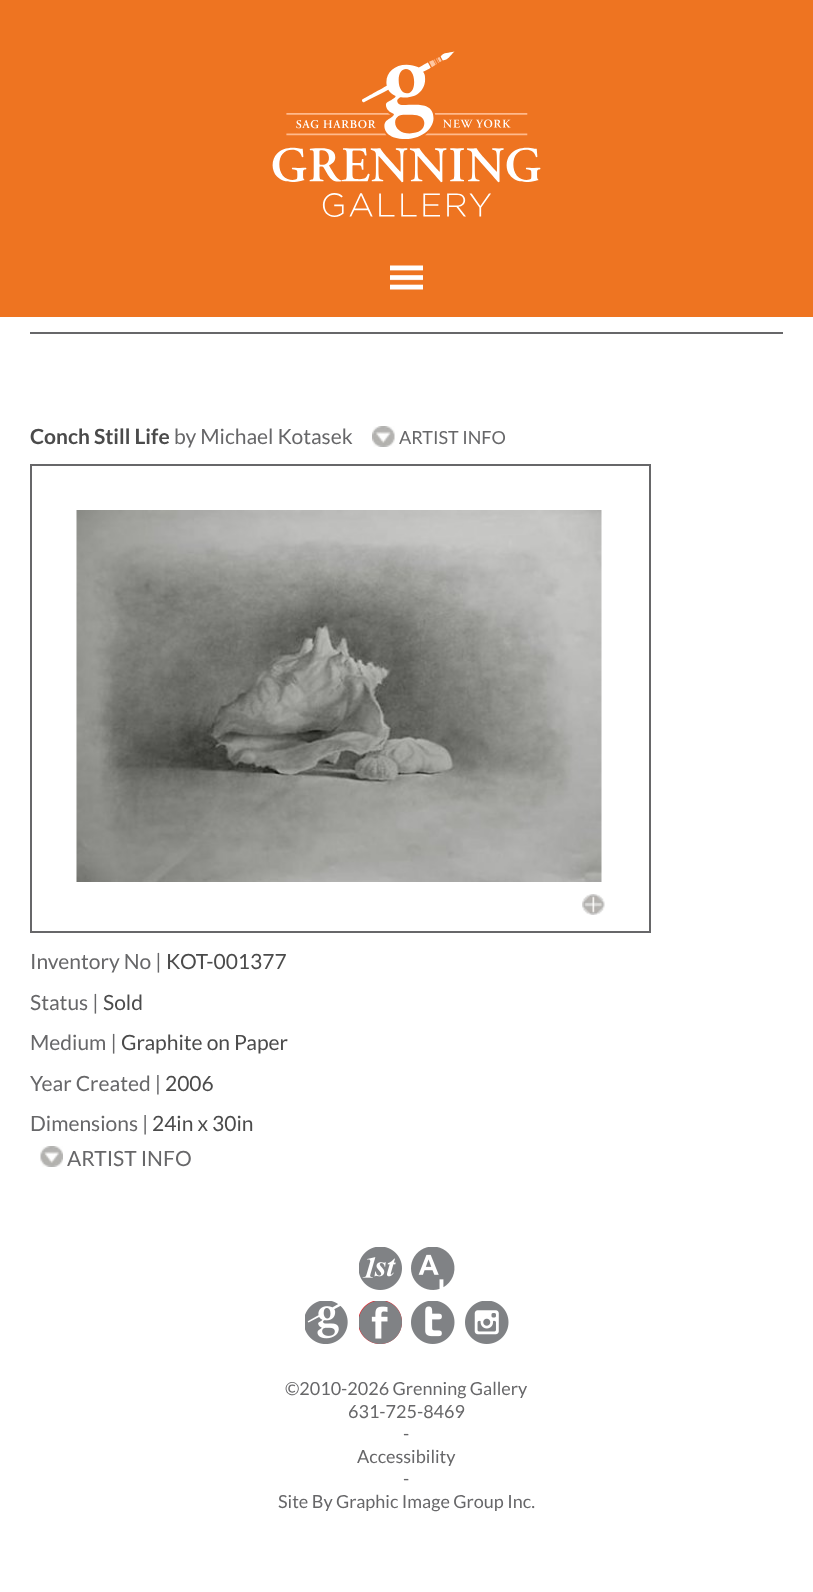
async function draw(canvas) {
  canvas.width = 813;
  canvas.height = 1592;
  const ctx = canvas.getContext('2d');
  ctx.miterLimit = 4;
  ctx.fontKerning = 'normal';
  function label(s, x, y, font, color) {
    ctx.font = font;
    ctx.fillStyle = color;
    ctx.fillText(s, x, y);
  }
  function rect(x, y, w, h, color) {
    ctx.fillStyle = color;
    ctx.fillRect(x, y, w, h);
  }
  async function image(src, x, y, w, h) {
    const img = new Image();
    img.src = src;
    await img.decode();
    ctx.drawImage(img, x, y, w, h);
  }

  rect(0, 0, 813, 1592, '#fff');
  rect(0, 0, 813, 317, '#ee7421');
  await image('assets/img1.png', 272, 51, 269, 166);
  await image('assets/img2.png', 390, 265, 33, 25);
  rect(30, 332, 753, 2, '#676769');
  label('Conch Still Life', 30, 444, 'bold 21px Lato', '#4b4b4b');
  label('by Michael Kotasek', 174, 444, '21px Lato', '#676769');
  await image('assets/img3.png', 372, 426, 23, 21);
  label('ARTIST INFO', 399, 444, '18px Lato', '#676769');
  ctx.strokeStyle = '#676769';
  ctx.lineWidth = 2;
  ctx.strokeRect(31, 465, 619, 467);
  await image('assets/img4.png', 76, 510, 526, 372);
  await image('assets/img5.png', 582, 894, 23, 21);
  label('Inventory No |', 30, 969, '21px Lato', '#676769');
  label('KOT-001377', 166, 969, '21px Lato', '#4b4b4b');
  label('Status |', 30, 1010, '21px Lato', '#676769');
  label('Sold', 103, 1010, '21px Lato', '#4b4b4b');
  label('Medium |', 30, 1050, '21px Lato', '#676769');
  label('Graphite on Paper', 121, 1050, '21px Lato', '#4b4b4b');
  label('Year Created |', 30, 1091, '21px Lato', '#676769');
  label('2006', 165, 1091, '21px Lato', '#4b4b4b');
  label('Dimensions |', 30, 1131, '21px Lato', '#676769');
  label('24in x 30in', 152, 1131, '21px Lato', '#4b4b4b');
  await image('assets/img6.png', 40, 1146, 23, 21);
  label('ARTIST INFO', 67, 1166, '21px Lato', '#676769');
  await image('assets/img7.png', 359, 1247, 43, 43);
  await image('assets/img8.png', 411, 1247, 44, 43);
  await image('assets/img9.png', 305, 1301, 43, 43);
  await image('assets/img10.png', 359, 1301, 43, 43);
  await image('assets/img11.png', 411, 1301, 44, 43);
  await image('assets/img12.png', 465, 1301, 44, 43);
  label('©2010-2026 Grenning Gallery', 285, 1395, '18px Lato', '#676769');
  label('631-725-8469', 348, 1418, '18px Lato', '#676769');
  label('-', 403, 1440, '18px Lato', '#676769');
  label('Accessibility', 357, 1463, '18px Lato', '#676769');
  label('-', 403, 1485, '18px Lato', '#676769');
  label('Site By Graphic Image Group Inc.', 278, 1508, '18px Lato', '#676769');
}

draw(document.querySelector('canvas'));
